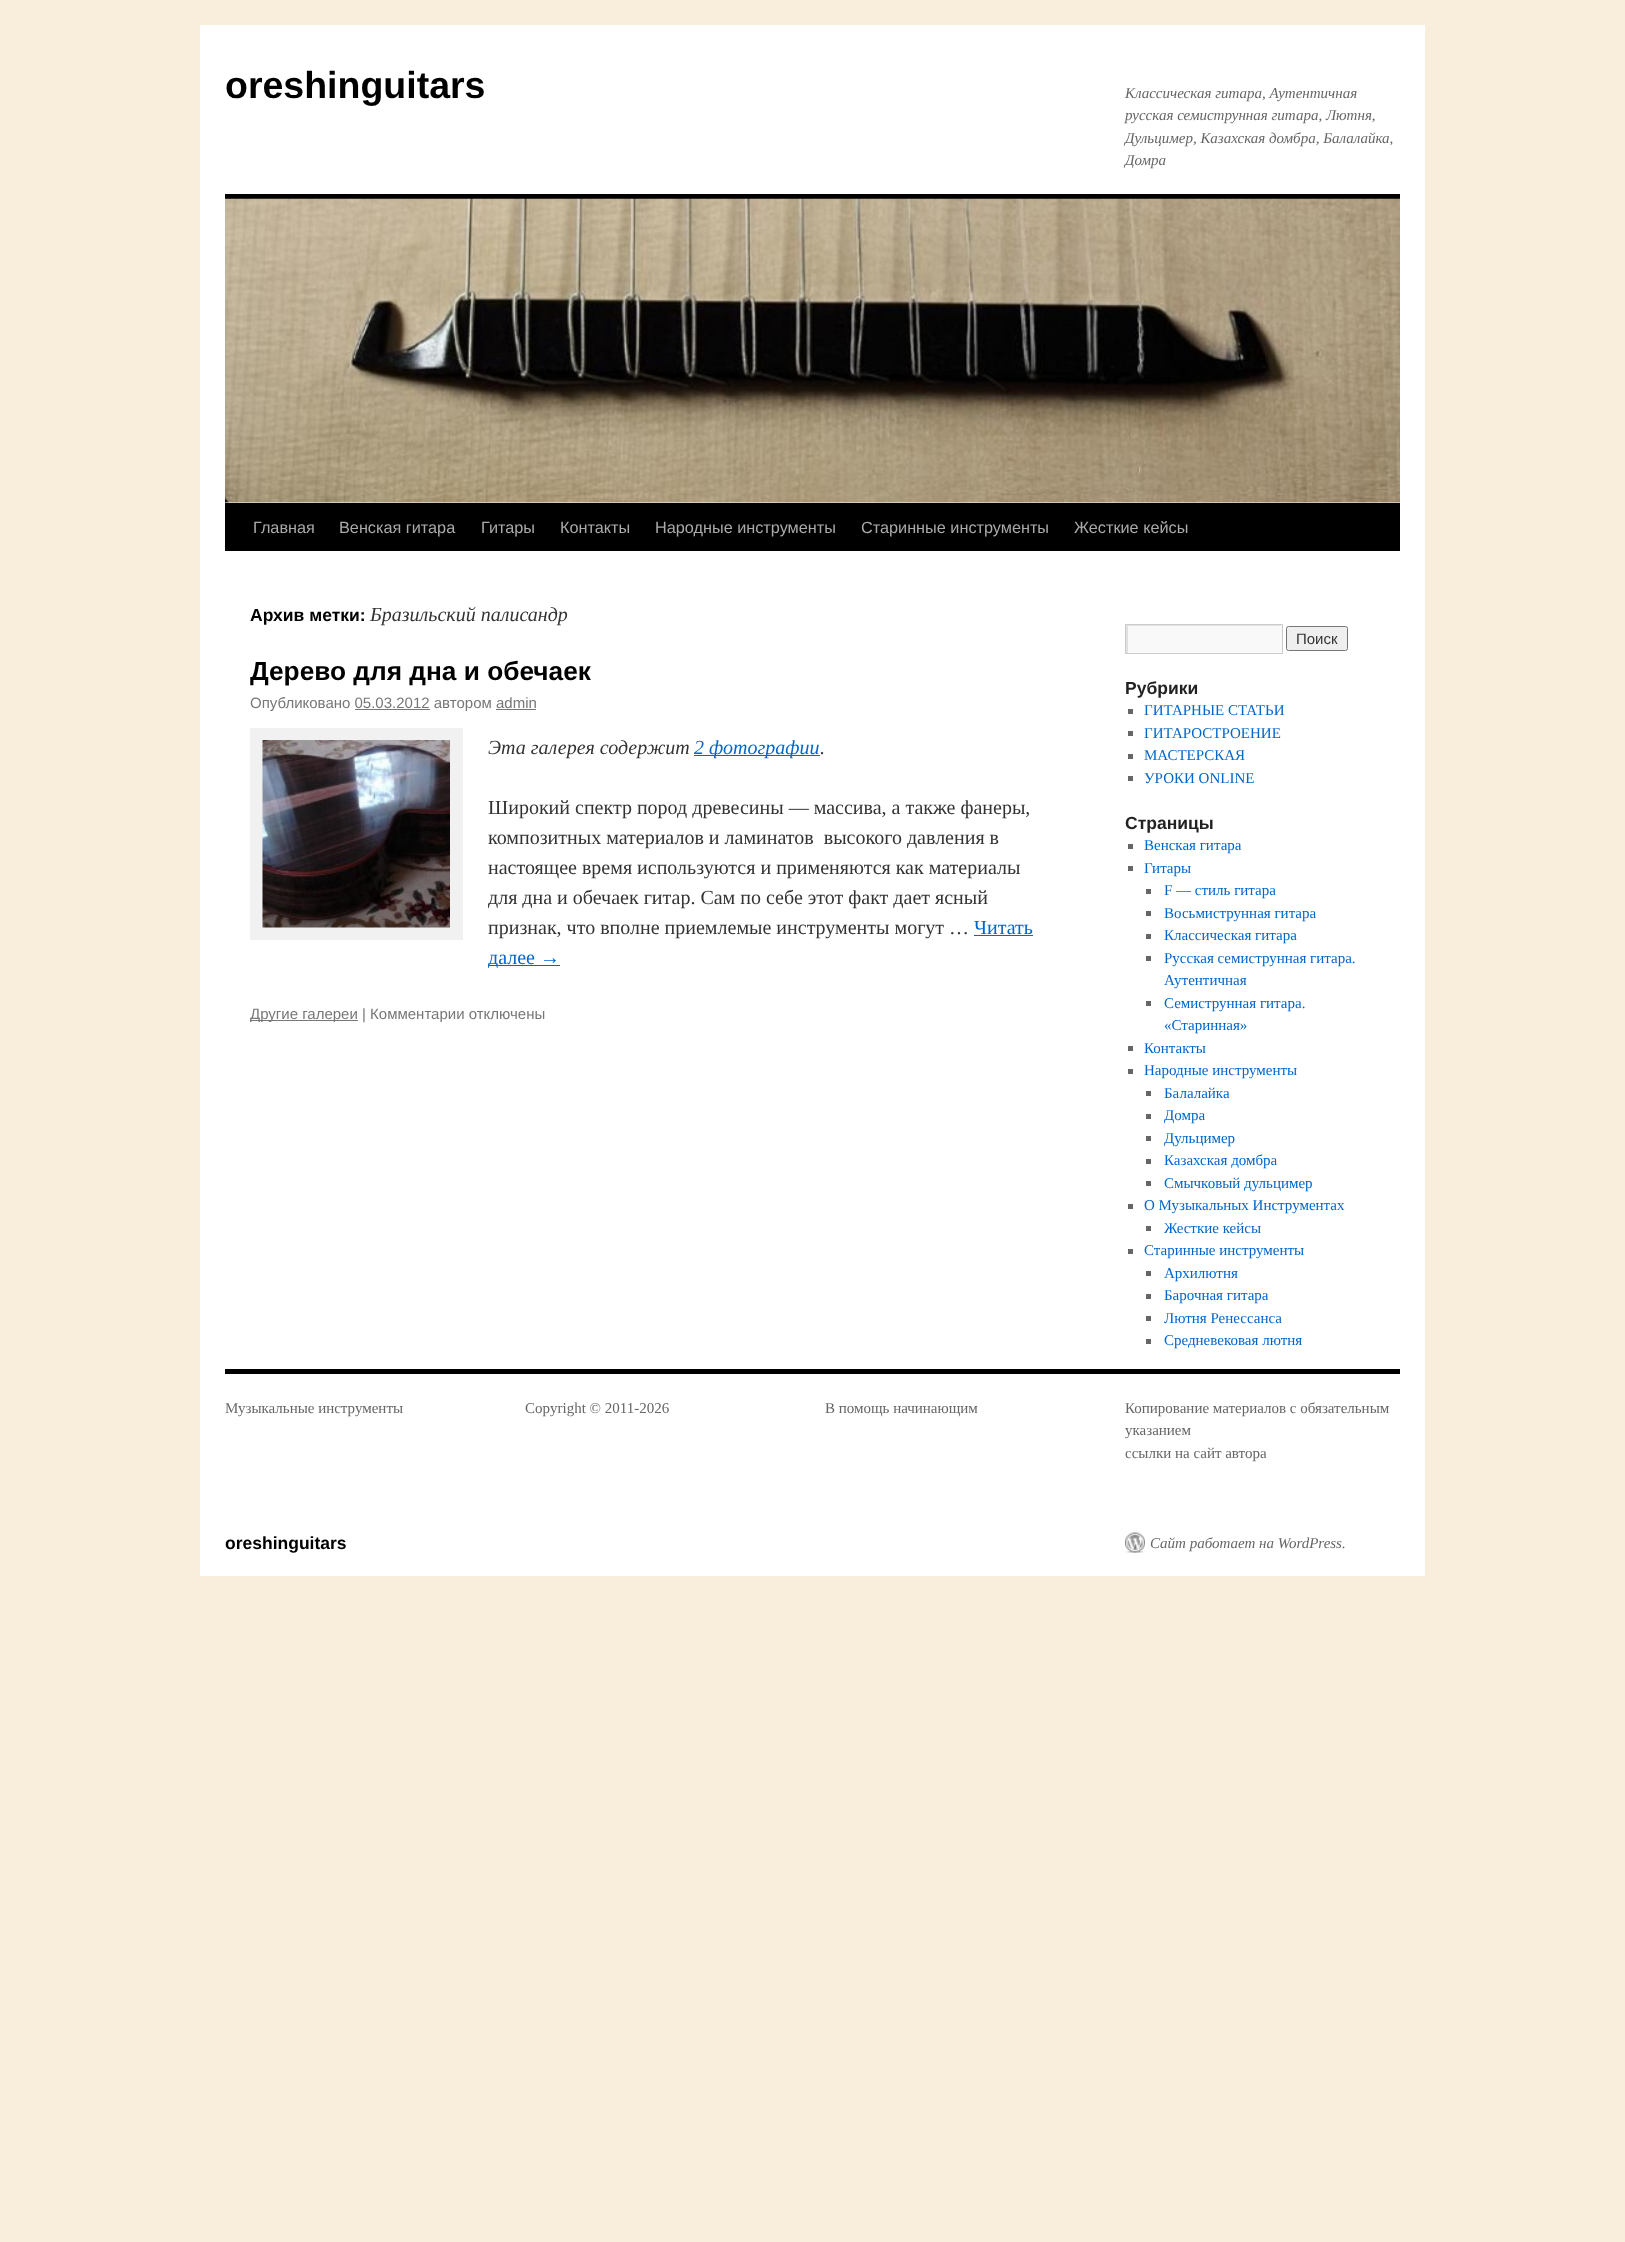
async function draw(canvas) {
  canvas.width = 1625;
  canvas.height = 2242;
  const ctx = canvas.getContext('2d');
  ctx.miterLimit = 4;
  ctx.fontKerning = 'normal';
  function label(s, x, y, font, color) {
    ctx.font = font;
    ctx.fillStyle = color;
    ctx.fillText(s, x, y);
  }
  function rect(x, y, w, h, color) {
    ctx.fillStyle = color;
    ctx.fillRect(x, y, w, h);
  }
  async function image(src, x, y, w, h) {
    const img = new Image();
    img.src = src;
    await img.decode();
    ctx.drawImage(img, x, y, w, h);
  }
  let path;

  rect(0, 0, 1625, 2242, '#f9eddb');
  rect(200, 25, 1225, 1551, '#fff');
  label('oreshinguitars', 225, 98, 'bold 37.5px Liberation Sans', '#000');
  label('Классическая гитара, Аутентичная', 1125, 98, 'italic 15px Liberation Serif', '#666');
  label('русская семиструнная гитара, Лютня,', 1125, 120, 'italic 15px Liberation Serif', '#666');
  label('Дульцимер, Казахская домбра, Балалайка,', 1125, 143, 'italic 15px Liberation Serif', '#666');
  label('Домра', 1125, 165, 'italic 15px Liberation Serif', '#666');
  rect(225, 194, 1175, 5, '#000');
  rect(225, 503, 1175, 48, '#000');
  await image('assets/img1.png', 225, 198, 1175, 305);
  label('Главная', 253, 533, '16.25px Liberation Sans', '#aaa');
  label('Венская гитара', 339, 533, '16.25px Liberation Sans', '#aaa');
  label('Гитары', 481, 533, '16.25px Liberation Sans', '#aaa');
  label('Контакты', 560, 533, '16.25px Liberation Sans', '#aaa');
  label('Народные инструменты', 655, 533, '16.25px Liberation Sans', '#aaa');
  label('Старинные инструменты', 861, 533, '16.25px Liberation Sans', '#aaa');
  label('Жесткие кейсы', 1074, 533, '16.25px Liberation Sans', '#aaa');
  label('Архив метки:', 250, 621, 'bold 17.5px Liberation Sans', '#000');
  label('Бразильский палисандр', 370, 621, 'italic 20px Liberation Serif', '#333');
  label('Дерево для дна и обечаек', 250, 680, 'bold 26.25px Liberation Sans', '#000');
  label('Опубликовано 05.03.2012 автором admin', 250, 708, '15px Liberation Sans', '#777');
  rect(355, 709, 75, 1, '#777');
  rect(496, 709, 40, 1, '#777');
  ctx.strokeStyle = '#f1f1f1';
  ctx.lineWidth = 13;
  ctx.strokeRect(256.5, 734.5, 200, 199);
  await image('assets/img2.png', 262, 740, 188, 188);
  label('Эта галерея содержит', 488, 754, 'italic 20px Liberation Serif', '#333');
  rect(694, 755, 126, 1, '#06c');
  label('2 фотографии', 694, 754, 'italic 20px Liberation Serif', '#06c');
  label('.', 820, 754, 'italic 20px Liberation Serif', '#333');
  label('Широкий спектр пород древесины — массива, а также фанеры,', 488, 814, '20px Liberation Serif', '#333');
  label('композитных материалов и ламинатов  высокого давления в', 488, 844, '20px Liberation Serif', '#333');
  label('настоящее время используются и применяются как материалы', 488, 874, '20px Liberation Serif', '#333');
  label('для дна и обечаек гитар. Сам по себе этот факт дает ясный', 488, 904, '20px Liberation Serif', '#333');
  label('признак, что вполне приемлемые инструменты могут …', 488, 934, '20px Liberation Serif', '#333');
  label('Читать', 974, 934, '20px Liberation Serif', '#06c');
  rect(974, 935, 59, 1, '#06c');
  rect(488, 965, 72, 1, '#06c');
  label('далее →', 488, 964, '20px Liberation Serif', '#06c');
  rect(250, 1020, 108, 1, '#777');
  label('Другие галереи | Комментарии отключены', 250, 1019, '15px Liberation Sans', '#777');
  rect(1128, 625, 154, 28, '#f9f9f9');
  ctx.save();
  ctx.beginPath();
  ctx.rect(1126, 625, 155, 28);
  ctx.clip();
  ctx.fillStyle = '#e0e0e0';
  path = new Path2D('M1002 501H1405V776H1002ZM1128 626H1282V654H1128Z');
  ctx.fill(path, 'evenodd');
  ctx.restore();
  ctx.strokeStyle = '#ccc';
  ctx.lineWidth = 1;
  ctx.strokeRect(1125.5, 624.5, 157, 29);
  ctx.fillStyle = '#efefef';
  ctx.beginPath();
  ctx.roundRect(1286.5, 626.5, 61, 24, 2);
  ctx.fill();
  ctx.strokeStyle = '#767676';
  ctx.stroke();
  label('Поиск', 1296, 644, '15px Liberation Sans', '#333');
  label('Рубрики', 1125, 694, 'bold 17.5px Liberation Sans', '#222');
  rect(1128, 709, 5, 5, '#666');
  label('ГИТАРНЫЕ СТАТЬИ', 1144, 715, '15px Liberation Serif', '#06c');
  rect(1128, 731, 5, 5, '#666');
  label('ГИТАРОСТРОЕНИЕ', 1144, 738, '15px Liberation Serif', '#06c');
  rect(1128, 754, 5, 5, '#666');
  label('МАСТЕРСКАЯ', 1144, 760, '15px Liberation Serif', '#06c');
  rect(1128, 776, 5, 5, '#666');
  label('УРОКИ ONLINE', 1144, 783, '15px Liberation Serif', '#06c');
  label('Страницы', 1125, 829, 'bold 17.5px Liberation Sans', '#222');
  rect(1128, 844, 5, 5, '#666');
  label('Венская гитара', 1144, 850, '15px Liberation Serif', '#06c');
  rect(1128, 866, 5, 5, '#666');
  label('Гитары', 1144, 873, '15px Liberation Serif', '#06c');
  rect(1146, 889, 5, 5, '#666');
  label('F — стиль гитара', 1164, 895, '15px Liberation Serif', '#06c');
  rect(1146, 911, 5, 5, '#666');
  label('Восьмиструнная гитара', 1164, 918, '15px Liberation Serif', '#06c');
  rect(1146, 934, 5, 5, '#666');
  label('Классическая гитара', 1164, 940, '15px Liberation Serif', '#06c');
  rect(1146, 956, 5, 5, '#666');
  label('Русская семиструнная гитара.', 1164, 963, '15px Liberation Serif', '#06c');
  label('Аутентичная', 1164, 985, '15px Liberation Serif', '#06c');
  rect(1146, 1001, 5, 5, '#666');
  label('Семиструнная гитара.', 1164, 1008, '15px Liberation Serif', '#06c');
  label('«Старинная»', 1164, 1030, '15px Liberation Serif', '#06c');
  rect(1128, 1046, 5, 5, '#666');
  label('Контакты', 1144, 1053, '15px Liberation Serif', '#06c');
  rect(1128, 1069, 5, 5, '#666');
  label('Народные инструменты', 1144, 1075, '15px Liberation Serif', '#06c');
  rect(1146, 1091, 5, 5, '#666');
  label('Балалайка', 1164, 1098, '15px Liberation Serif', '#06c');
  rect(1146, 1114, 5, 5, '#666');
  label('Домра', 1164, 1120, '15px Liberation Serif', '#06c');
  rect(1146, 1136, 5, 5, '#666');
  label('Дульцимер', 1164, 1143, '15px Liberation Serif', '#06c');
  rect(1146, 1159, 5, 5, '#666');
  label('Казахская домбра', 1164, 1165, '15px Liberation Serif', '#06c');
  rect(1146, 1181, 5, 5, '#666');
  label('Смычковый дульцимер', 1164, 1188, '15px Liberation Serif', '#06c');
  rect(1128, 1204, 5, 5, '#666');
  label('О Музыкальных Инструментах', 1144, 1210, '15px Liberation Serif', '#06c');
  rect(1146, 1226, 5, 5, '#666');
  label('Жесткие кейсы', 1164, 1233, '15px Liberation Serif', '#06c');
  rect(1128, 1249, 5, 5, '#666');
  label('Старинные инструменты', 1144, 1255, '15px Liberation Serif', '#06c');
  rect(1146, 1271, 5, 5, '#666');
  label('Архилютня', 1164, 1278, '15px Liberation Serif', '#06c');
  rect(1146, 1294, 5, 5, '#666');
  label('Барочная гитара', 1164, 1300, '15px Liberation Serif', '#06c');
  rect(1146, 1316, 5, 5, '#666');
  label('Лютня Ренессанса', 1164, 1323, '15px Liberation Serif', '#06c');
  rect(1146, 1339, 5, 5, '#666');
  label('Средневековая лютня', 1164, 1345, '15px Liberation Serif', '#06c');
  rect(225, 1369, 1175, 5, '#000');
  label('Музыкальные инструменты', 225, 1413, '15px Liberation Serif', '#666');
  label('Copyright © 2011-2026', 525, 1413, '15px Liberation Serif', '#666');
  label('В помощь начинающим', 825, 1413, '15px Liberation Serif', '#666');
  label('Копирование материалов с обязательным', 1125, 1413, '15px Liberation Serif', '#666');
  label('указанием', 1125, 1435, '15px Liberation Serif', '#666');
  label('ссылки на сайт автора', 1125, 1458, '15px Liberation Serif', '#666');
  label('oreshinguitars', 225, 1549, 'bold 17.5px Liberation Sans', '#000');
  await image('assets/img3.png', 1125, 1532, 20, 21);
  label('Сайт работает на WordPress.', 1150, 1548, 'italic 15px Liberation Serif', '#666');
}

draw(document.querySelector('canvas'));
